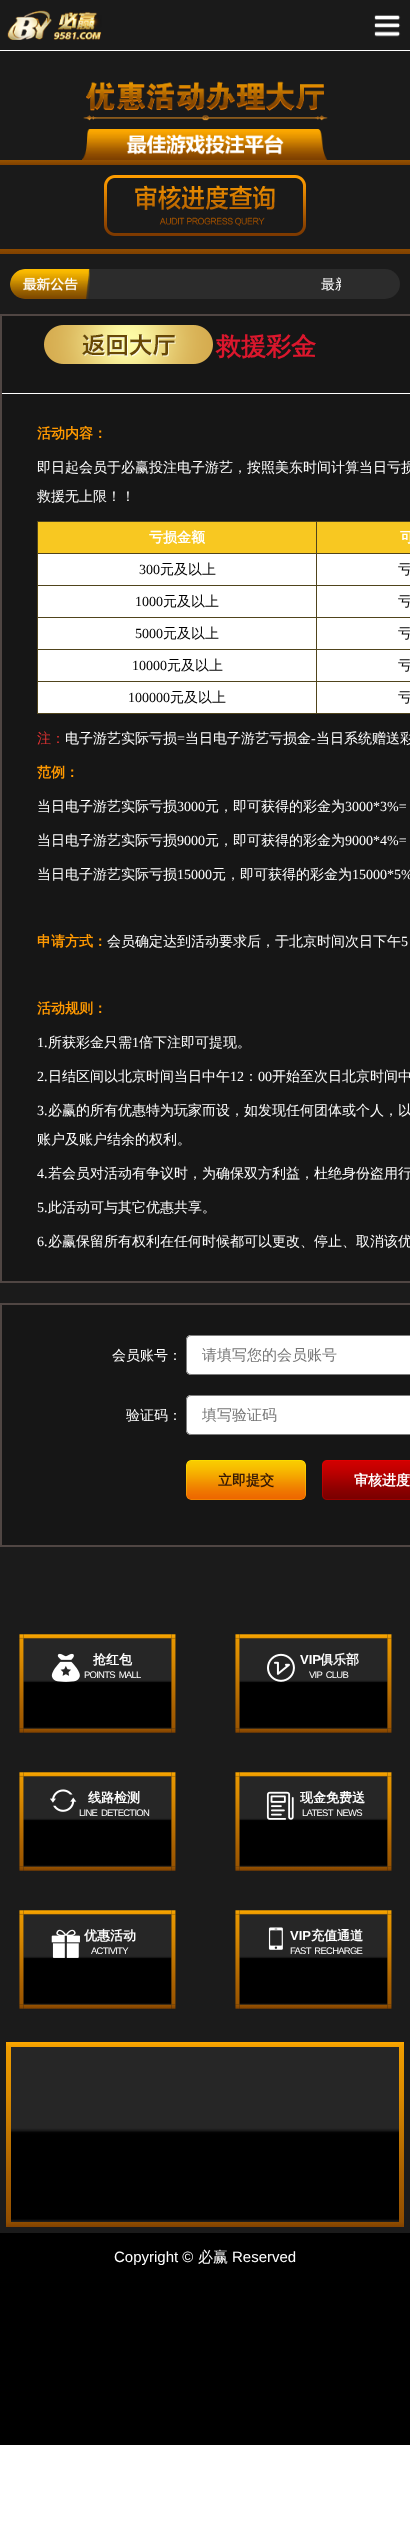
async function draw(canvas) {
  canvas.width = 410;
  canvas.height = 2533;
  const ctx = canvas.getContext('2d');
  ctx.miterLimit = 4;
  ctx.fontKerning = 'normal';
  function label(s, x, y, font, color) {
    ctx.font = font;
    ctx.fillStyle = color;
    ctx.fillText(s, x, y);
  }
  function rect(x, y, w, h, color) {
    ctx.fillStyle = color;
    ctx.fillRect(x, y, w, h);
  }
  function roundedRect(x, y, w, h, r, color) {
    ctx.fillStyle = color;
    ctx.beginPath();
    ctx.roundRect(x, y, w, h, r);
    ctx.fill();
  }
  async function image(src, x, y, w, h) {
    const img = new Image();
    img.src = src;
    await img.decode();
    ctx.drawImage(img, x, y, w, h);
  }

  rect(0, 0, 410, 2533, '#fff');
  await image('assets/img1.png', 0, 2282, 410, 163);
  rect(0, 0, 410, 249, '#1a1a1a');
  await image('assets/img2.png', 0, 249, 410, 5);
  rect(0, 50, 410, 1, '#fff');
  await image('assets/img3.png', 7, 10, 95, 30);
  await image('assets/img4.png', 374, 15, 27, 22);
  await image('assets/img5.png', 0, 160, 410, 5);
  await image('assets/img6.png', 83, 81, 245, 40);
  await image('assets/img7.png', 82, 129, 246, 31);
  await image('assets/img8.png', 104, 175, 202, 61);
  rect(0, 254, 410, 1979, '#1b1b1b');
  roundedRect(10, 269, 390, 30, 15, '#2c2c2c');
  await image('assets/img9.png', 10, 269, 80, 30);
  ctx.save();
  ctx.beginPath();
  ctx.rect(90, 269, 251, 30);
  ctx.clip();
  label('最新', 321, 289, '500 14px WenQuanYi Zen Hei', '#fff');
  ctx.restore();
  ctx.fillStyle = '#161616';
  ctx.beginPath();
  ctx.rect(1, 315, 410, 967);
  ctx.fill();
  ctx.strokeStyle = '#504643';
  ctx.lineWidth = 2;
  ctx.stroke();
  rect(2, 393, 408, 1, '#fff');
  await image('assets/img10.png', 44, 325, 169, 39);
  label('救援彩金', 216, 355, 'bold 25px WenQuanYi Zen Hei', '#db172d');
  label('活动内容：', 37, 438, 'bold 14px WenQuanYi Zen Hei', '#f90');
  label('即日起会员于必赢投注电子游艺，按照美东时间计算当日亏损', 37, 472, '500 14px WenQuanYi Zen Hei', '#fff');
  label('救援无上限！！', 37, 501, '500 14px WenQuanYi Zen Hei', '#fff');
  rect(38, 522, 278, 31, '#f8c821');
  rect(316, 521, 94, 1, '#50441c');
  rect(316, 553, 94, 1, '#50441c');
  rect(316, 585, 94, 1, '#50441c');
  rect(316, 617, 94, 1, '#50441c');
  rect(316, 649, 94, 1, '#50441c');
  rect(316, 681, 94, 1, '#50441c');
  rect(316, 713, 94, 1, '#50441c');
  rect(316, 681, 1, 33, '#50441c');
  rect(37, 681, 280, 1, '#50441c');
  rect(316, 649, 1, 33, '#50441c');
  rect(37, 649, 280, 1, '#50441c');
  rect(316, 617, 1, 33, '#50441c');
  rect(37, 617, 280, 1, '#50441c');
  rect(316, 585, 1, 33, '#50441c');
  rect(37, 585, 280, 1, '#50441c');
  rect(316, 553, 1, 33, '#50441c');
  rect(37, 553, 280, 1, '#50441c');
  rect(316, 521, 1, 33, '#50441c');
  rect(37, 521, 280, 1, '#50441c');
  rect(37, 713, 280, 1, '#50441c');
  rect(37, 681, 1, 33, '#50441c');
  rect(37, 649, 1, 33, '#50441c');
  rect(37, 617, 1, 33, '#50441c');
  rect(37, 585, 1, 33, '#50441c');
  rect(37, 553, 1, 33, '#50441c');
  rect(37, 521, 1, 33, '#50441c');
  label('亏损金额', 149, 542, 'bold 14px WenQuanYi Zen Hei', '#fff');
  rect(317, 522, 93, 31, '#f8c821');
  label('可', 400, 542, 'bold 14px WenQuanYi Zen Hei', '#fff');
  rect(38, 554, 278, 31, '#fff');
  label('300', 139, 574, '14px Liberation Serif', '#000');
  label('元及以上', 160, 574, '500 14px WenQuanYi Zen Hei', '#000');
  rect(317, 554, 93, 31, '#fff');
  label('亏', 398, 574, '500 14px WenQuanYi Zen Hei', '#000');
  rect(38, 586, 278, 31, '#fff');
  label('1000', 135, 606, '14px Liberation Serif', '#000');
  label('元及以上', 163, 606, '500 14px WenQuanYi Zen Hei', '#000');
  rect(317, 586, 93, 31, '#fff');
  label('亏', 398, 606, '500 14px WenQuanYi Zen Hei', '#000');
  rect(38, 618, 278, 31, '#fff');
  label('5000', 135, 638, '14px Liberation Serif', '#000');
  label('元及以上', 163, 638, '500 14px WenQuanYi Zen Hei', '#000');
  rect(317, 618, 93, 31, '#fff');
  label('亏', 398, 638, '500 14px WenQuanYi Zen Hei', '#000');
  rect(38, 650, 278, 31, '#fff');
  label('10000', 132, 670, '14px Liberation Serif', '#000');
  label('元及以上', 167, 670, '500 14px WenQuanYi Zen Hei', '#000');
  rect(317, 650, 93, 31, '#fff');
  label('亏', 398, 670, '500 14px WenQuanYi Zen Hei', '#000');
  rect(38, 682, 278, 31, '#fff');
  label('100000', 128, 702, '14px Liberation Serif', '#000');
  label('元及以上', 170, 702, '500 14px WenQuanYi Zen Hei', '#000');
  rect(317, 682, 93, 31, '#fff');
  label('亏', 398, 702, '500 14px WenQuanYi Zen Hei', '#000');
  label('注：', 37, 743, '500 14px WenQuanYi Zen Hei', '#e53333');
  label('电子游艺实际亏损', 65, 743, '500 14px WenQuanYi Zen Hei', '#fff');
  label('=', 177, 743, '14px Liberation Serif', '#fff');
  label('当日电子游艺亏损金', 185, 743, '500 14px WenQuanYi Zen Hei', '#fff');
  label('-', 311, 743, '14px Liberation Serif', '#fff');
  label('当日系统赠送彩', 316, 743, '500 14px WenQuanYi Zen Hei', '#fff');
  label('范例：', 37, 777, 'bold 14px WenQuanYi Zen Hei', '#f90');
  label('当日电子游艺实际亏损', 37, 811, '500 14px WenQuanYi Zen Hei', '#fff');
  label('3000', 177, 811, '14px Liberation Serif', '#fff');
  label('元，即可获得的彩金为', 205, 811, '500 14px WenQuanYi Zen Hei', '#fff');
  label('3000*3%=', 345, 811, '14px Liberation Serif', '#fff');
  label('当日电子游艺实际亏损', 37, 845, '500 14px WenQuanYi Zen Hei', '#fff');
  label('9000', 177, 845, '14px Liberation Serif', '#fff');
  label('元，即可获得的彩金为', 205, 845, '500 14px WenQuanYi Zen Hei', '#fff');
  label('9000*4%=', 345, 845, '14px Liberation Serif', '#fff');
  label('当日电子游艺实际亏损', 37, 879, '500 14px WenQuanYi Zen Hei', '#fff');
  label('15000', 177, 879, '14px Liberation Serif', '#fff');
  label('元，即可获得的彩金为', 212, 879, '500 14px WenQuanYi Zen Hei', '#fff');
  label('15000*5%', 352, 879, '14px Liberation Serif', '#fff');
  label('申请方式：', 37, 946, 'bold 14px WenQuanYi Zen Hei', '#f90');
  label('会员确定达到活动要求后，于北京时间次日下午', 107, 946, '500 14px WenQuanYi Zen Hei', '#fff');
  label('5', 401, 946, '14px Liberation Serif', '#fff');
  label('活动规则：', 37, 1013, 'bold 14px WenQuanYi Zen Hei', '#f90');
  label('1.', 37, 1047, '14px Liberation Serif', '#fff');
  label('所获彩金只需', 48, 1047, '500 14px WenQuanYi Zen Hei', '#fff');
  label('1', 132, 1047, '14px Liberation Serif', '#fff');
  label('倍下注即可提现。', 139, 1047, '500 14px WenQuanYi Zen Hei', '#fff');
  label('2.', 37, 1081, '14px Liberation Serif', '#fff');
  label('日结区间以北京时间当日中午', 48, 1081, '500 14px WenQuanYi Zen Hei', '#fff');
  label('12', 230, 1081, '14px Liberation Serif', '#fff');
  label('：', 244, 1081, '500 14px WenQuanYi Zen Hei', '#fff');
  label('00', 258, 1081, '14px Liberation Serif', '#fff');
  label('开始至次日北京时间中', 272, 1081, '500 14px WenQuanYi Zen Hei', '#fff');
  label('3.', 37, 1115, '14px Liberation Serif', '#fff');
  label('必赢的所有优惠特为玩家而设，如发现任何团体或个人，以', 48, 1115, '500 14px WenQuanYi Zen Hei', '#fff');
  label('账户及账户结余的权利。', 37, 1144, '500 14px WenQuanYi Zen Hei', '#fff');
  label('4.', 37, 1178, '14px Liberation Serif', '#fff');
  label('若会员对活动有争议时，为确保双方利益，杜绝身份盗用行', 48, 1178, '500 14px WenQuanYi Zen Hei', '#fff');
  label('5.', 37, 1212, '14px Liberation Serif', '#fff');
  label('此活动可与其它优惠共享。', 48, 1212, '500 14px WenQuanYi Zen Hei', '#fff');
  label('6.', 37, 1246, '14px Liberation Serif', '#fff');
  label('必赢保留所有权利在任何时候都可以更改、停止、取消该优', 48, 1246, '500 14px WenQuanYi Zen Hei', '#fff');
  ctx.fillStyle = '#161616';
  ctx.beginPath();
  ctx.rect(1, 1304, 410, 242);
  ctx.fill();
  ctx.stroke();
  label('会员账号：', 112, 1360, '500 14px WenQuanYi Zen Hei', '#fff');
  ctx.beginPath();
  ctx.roundRect(186, 1335, 224, 40, [5, 0, 0, 5]);
  ctx.fill();
  ctx.beginPath();
  ctx.roundRect(186.5, 1335.5, 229, 39, 4.5);
  ctx.strokeStyle = '#7d7d7d';
  ctx.lineWidth = 1;
  ctx.stroke();
  label('请填写您的会员账号', 202, 1360, '500 15px WenQuanYi Zen Hei', '#757575');
  label('验证码：', 126, 1420, '500 14px WenQuanYi Zen Hei', '#fff');
  ctx.beginPath();
  ctx.roundRect(186, 1395, 224, 40, [5, 0, 0, 5]);
  ctx.fill();
  ctx.beginPath();
  ctx.roundRect(186.5, 1395.5, 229, 39, 4.5);
  ctx.stroke();
  label('填写验证码', 202, 1420, '500 15px WenQuanYi Zen Hei', '#757575');
  await image('assets/img11.png', 186, 1460, 120, 40);
  label('立即提交', 218, 1485, 'bold 14px WenQuanYi Zen Hei', '#361905');
  await image('assets/img12.png', 322, 1460, 88, 40);
  label('审核进度', 354, 1485, 'bold 14px WenQuanYi Zen Hei', '#fff');
  await image('assets/img13.png', 23, 1638, 149, 90);
  await image('assets/img14.png', 19, 1634, 157, 99);
  await image('assets/img15.png', 51, 1653, 29, 29);
  label('抢红包', 93, 1664, 'bold 13px WenQuanYi Zen Hei', '#fff');
  ctx.letterSpacing = '-0.75px';
  label('POINTS  MALL', 84, 1678, '9.5px Liberation Sans', '#fff');
  await image('assets/img13.png', 239, 1638, 149, 90);
  await image('assets/img16.png', 235, 1634, 157, 99);
  await image('assets/img17.png', 267, 1653, 28, 29);
  ctx.letterSpacing = '0px';
  label('VIP', 300, 1664, 'bold 13px Liberation Sans', '#fff');
  label('俱乐部', 320, 1664, 'bold 13px WenQuanYi Zen Hei', '#fff');
  ctx.letterSpacing = '-0.75px';
  label('VIP  CLUB', 309, 1678, '9.5px Liberation Sans', '#fff');
  await image('assets/img13.png', 23, 1776, 149, 90);
  await image('assets/img18.png', 19, 1772, 157, 99);
  await image('assets/img19.png', 50, 1789, 27, 23);
  ctx.letterSpacing = '0px';
  label('线路检测', 88, 1802, 'bold 13px WenQuanYi Zen Hei', '#fff');
  ctx.letterSpacing = '-0.75px';
  label('LINE  DETECTION', 79, 1816, '9.5px Liberation Sans', '#fff');
  await image('assets/img13.png', 239, 1776, 149, 90);
  await image('assets/img20.png', 235, 1772, 157, 99);
  await image('assets/img21.png', 266, 1791, 28, 29);
  ctx.letterSpacing = '0px';
  label('现金免费送', 300, 1802, 'bold 13px WenQuanYi Zen Hei', '#fff');
  ctx.letterSpacing = '-0.75px';
  label('LATEST  NEWS', 302, 1816, '9.5px Liberation Sans', '#fff');
  await image('assets/img13.png', 23, 1914, 149, 90);
  await image('assets/img14.png', 19, 1910, 157, 99);
  await image('assets/img22.png', 51, 1929, 29, 29);
  ctx.letterSpacing = '0px';
  label('优惠活动', 84, 1940, 'bold 13px WenQuanYi Zen Hei', '#fff');
  ctx.letterSpacing = '-0.75px';
  label('ACTIVITY', 91, 1954, '9.5px Liberation Sans', '#fff');
  await image('assets/img13.png', 239, 1914, 149, 90);
  await image('assets/img16.png', 235, 1910, 157, 99);
  await image('assets/img23.png', 268, 1927, 15, 23);
  ctx.letterSpacing = '0px';
  label('VIP', 290, 1940, 'bold 13px Liberation Sans', '#fff');
  label('充值通道', 311, 1940, 'bold 13px WenQuanYi Zen Hei', '#fff');
  ctx.letterSpacing = '-0.75px';
  label('FAST  RECHARGE', 290, 1954, '9.5px Liberation Sans', '#fff');
  await image('assets/img24.png', 11, 2047, 388, 174);
  await image('assets/img25.png', 6, 2042, 398, 185);
  rect(0, 2233, 410, 49, '#000');
  ctx.letterSpacing = '0px';
  label('Copyright ©', 114, 2262, '15px Liberation Sans', '#fff');
  label('必赢', 198, 2262, '500 15px WenQuanYi Zen Hei', '#fff');
  label('Reserved', 232, 2262, '15px Liberation Sans', '#fff');
}

draw(document.querySelector('canvas'));
